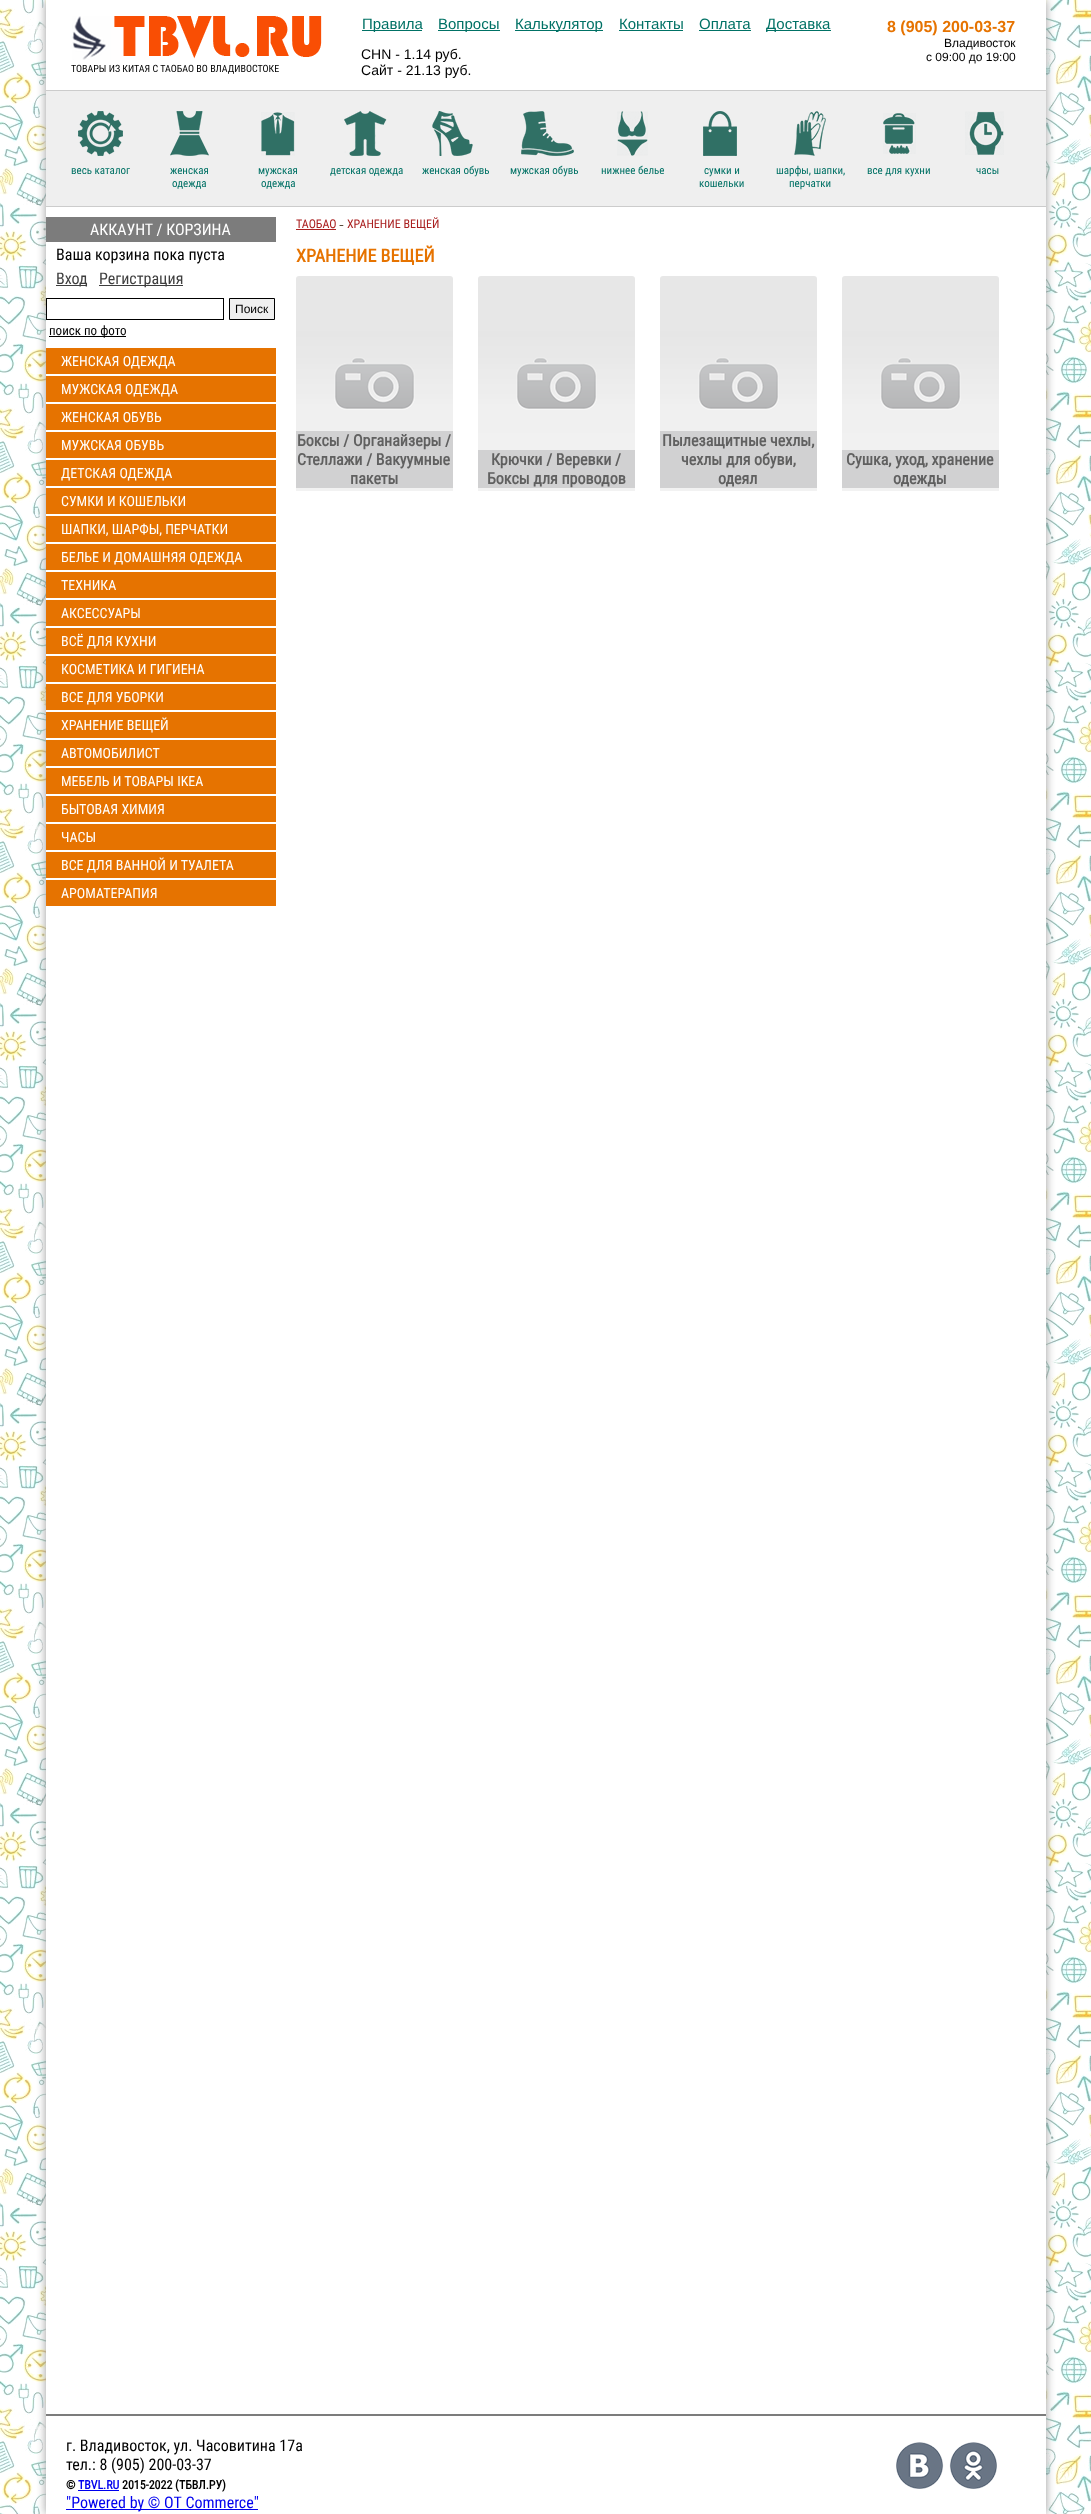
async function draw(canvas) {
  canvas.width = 1091;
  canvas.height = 2514;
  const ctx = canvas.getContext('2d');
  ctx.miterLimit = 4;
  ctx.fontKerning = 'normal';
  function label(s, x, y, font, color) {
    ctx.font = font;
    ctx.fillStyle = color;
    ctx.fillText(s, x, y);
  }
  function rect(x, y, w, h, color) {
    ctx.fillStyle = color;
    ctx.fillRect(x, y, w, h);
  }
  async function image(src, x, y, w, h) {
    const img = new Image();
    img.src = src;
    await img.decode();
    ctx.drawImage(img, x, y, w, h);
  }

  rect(0, 0, 1091, 2514, '#fff');
  await image('assets/img1.png', 0, 0, 1091, 2514);
  ctx.fillStyle = '#999';
  ctx.filter = 'blur(5px)';
  ctx.beginPath();
  ctx.rect(46, 0, 1000, 2514);
  ctx.fill();
  ctx.filter = 'none';
  rect(46, 0, 1000, 2514, '#fff');
  await image('assets/img2.png', 72, 16, 250, 44);
  rect(362, 30, 60, 1, '#007165');
  label('Правила', 362, 29, '15px Liberation Sans', '#007165');
  rect(438, 30, 62, 1, '#007165');
  label('Вопросы', 438, 29, '15px Liberation Sans', '#007165');
  rect(515, 30, 88, 1, '#007165');
  label('Калькулятор', 515, 29, '15px Liberation Sans', '#007165');
  label('Контакты', 619, 29, '15px Liberation Sans', '#007165');
  rect(619, 30, 64, 1, '#007165');
  label('Оплата', 699, 29, '15px Liberation Sans', '#007165');
  rect(699, 30, 52, 1, '#007165');
  rect(766, 30, 65, 1, '#007165');
  label('Доставка', 766, 29, '15px Liberation Sans', '#007165');
  label('8 (905) 200-03-37', 887, 32, 'bold 16px Liberation Sans', '#e67300');
  label('Владивосток', 944, 47, '12px Liberation Sans', '#000');
  label('с 09:00 до 19:00', 926, 61, '12px Liberation Sans', '#000');
  label('ТОВАРЫ ИЗ КИТАЯ С ТАОБАО ВО ВЛАДИВОСТОКЕ', 71, 72, '10px Roboto Condensed', '#000');
  label('CHN - 1.14 руб.', 361, 59, '14px Liberation Sans', '#000');
  label('Сайт - 21.13 руб.', 361, 75, '14px Liberation Sans', '#000');
  rect(46, 91, 1000, 115, '#efefef');
  rect(46, 90, 1000, 1, '#ccc');
  rect(46, 206, 1000, 1, '#ccc');
  await image('assets/img3.png', 78, 111, 45, 45);
  label('весь каталог', 71, 174, '11px Roboto Condensed', '#007165');
  await image('assets/img4.png', 170, 111, 39, 45);
  label('женская', 170, 174, '11px Roboto Condensed', '#007165');
  label('одежда', 172, 187, '11px Roboto Condensed', '#007165');
  await image('assets/img5.png', 261, 112, 34, 44);
  label('мужская', 258, 174, '11px Roboto Condensed', '#007165');
  label('одежда', 261, 187, '11px Roboto Condensed', '#007165');
  await image('assets/img6.png', 344, 111, 43, 45);
  label('детская одежда', 330, 174, '11px Roboto Condensed', '#007165');
  await image('assets/img7.png', 432, 111, 41, 45);
  label('женская обувь', 422, 174, '11px Roboto Condensed', '#007165');
  await image('assets/img8.png', 521, 111, 53, 45);
  label('мужская обувь', 510, 174, '11px Roboto Condensed', '#007165');
  await image('assets/img9.png', 617, 111, 31, 45);
  label('нижнее белье', 601, 174, '11px Roboto Condensed', '#007165');
  await image('assets/img10.png', 703, 111, 34, 45);
  label('сумки и', 704, 174, '11px Roboto Condensed', '#007165');
  label('кошельки', 699, 187, '11px Roboto Condensed', '#007165');
  await image('assets/img11.png', 794, 111, 32, 45);
  label('шарфы, шапки,', 776, 174, '11px Roboto Condensed', '#007165');
  label('перчатки', 789, 187, '11px Roboto Condensed', '#007165');
  await image('assets/img12.png', 883, 113, 33, 41);
  label('все для кухни', 867, 174, '11px Roboto Condensed', '#007165');
  await image('assets/img13.png', 965, 111, 39, 44);
  label('часы', 976, 174, '11px Roboto Condensed', '#007165');
  rect(46, 217, 230, 25, '#7c7c7c');
  label('АККАУНТ / КОРЗИНА', 90, 235, '16px Roboto Condensed', '#fff');
  label('Ваша корзина пока пуста', 56, 260, '16px Roboto Condensed', '#000');
  rect(56, 285, 31, 1, '#3e3e3e');
  label('Вход', 56, 284, '16px Roboto Condensed', '#3e3e3e');
  rect(99, 285, 84, 1, '#3e3e3e');
  label('Регистрация', 99, 284, '16px Roboto Condensed', '#3e3e3e');
  ctx.strokeStyle = '#000';
  ctx.strokeRect(46.5, 298.5, 177, 21);
  ctx.fillStyle = '#efefef';
  ctx.beginPath();
  ctx.rect(229.5, 298.5, 45, 21);
  ctx.fill();
  ctx.stroke();
  label('Поиск', 235, 313, '12px Liberation Sans', '#000');
  rect(49, 336, 77, 1, '#000');
  label('поиск по фото', 49, 335, '13px Roboto Condensed', '#000');
  rect(46, 348, 230, 26, '#e67300');
  label('ЖЕНСКАЯ ОДЕЖДА', 61, 366, '14px Roboto Condensed', '#fff');
  rect(46, 376, 230, 26, '#e67300');
  label('МУЖСКАЯ ОДЕЖДА', 61, 394, '14px Roboto Condensed', '#fff');
  rect(46, 404, 230, 26, '#e67300');
  label('ЖЕНСКАЯ ОБУВЬ', 61, 422, '14px Roboto Condensed', '#fff');
  rect(46, 432, 230, 26, '#e67300');
  label('МУЖСКАЯ ОБУВЬ', 61, 450, '14px Roboto Condensed', '#fff');
  rect(46, 460, 230, 26, '#e67300');
  label('ДЕТСКАЯ ОДЕЖДА', 61, 478, '14px Roboto Condensed', '#fff');
  rect(46, 488, 230, 26, '#e67300');
  label('СУМКИ И КОШЕЛЬКИ', 61, 506, '14px Roboto Condensed', '#fff');
  rect(46, 516, 230, 26, '#e67300');
  label('ШАПКИ, ШАРФЫ, ПЕРЧАТКИ', 61, 534, '14px Roboto Condensed', '#fff');
  rect(46, 544, 230, 26, '#e67300');
  label('БЕЛЬЕ И ДОМАШНЯЯ ОДЕЖДА', 61, 562, '14px Roboto Condensed', '#fff');
  rect(46, 572, 230, 26, '#e67300');
  label('ТЕХНИКА', 61, 590, '14px Roboto Condensed', '#fff');
  rect(46, 600, 230, 26, '#e67300');
  label('АКСЕССУАРЫ', 61, 618, '14px Roboto Condensed', '#fff');
  rect(46, 628, 230, 26, '#e67300');
  label('ВСЁ ДЛЯ КУХНИ', 61, 646, '14px Roboto Condensed', '#fff');
  rect(46, 656, 230, 26, '#e67300');
  label('КОСМЕТИКА И ГИГИЕНА', 61, 674, '14px Roboto Condensed', '#fff');
  rect(46, 684, 230, 26, '#e67300');
  label('ВСЕ ДЛЯ УБОРКИ', 61, 702, '14px Roboto Condensed', '#fff');
  rect(46, 712, 230, 26, '#e67300');
  label('ХРАНЕНИЕ ВЕЩЕЙ', 61, 730, '14px Roboto Condensed', '#fff');
  rect(46, 740, 230, 26, '#e67300');
  label('АВТОМОБИЛИСТ', 61, 758, '14px Roboto Condensed', '#fff');
  rect(46, 768, 230, 26, '#e67300');
  label('МЕБЕЛЬ И ТОВАРЫ IKEA', 61, 786, '14px Roboto Condensed', '#fff');
  rect(46, 796, 230, 26, '#e67300');
  label('БЫТОВАЯ ХИМИЯ', 61, 814, '14px Roboto Condensed', '#fff');
  rect(46, 824, 230, 26, '#e67300');
  label('ЧАСЫ', 61, 842, '14px Roboto Condensed', '#fff');
  rect(46, 852, 230, 26, '#e67300');
  label('ВСЕ ДЛЯ ВАННОЙ И ТУАЛЕТА', 61, 870, '14px Roboto Condensed', '#fff');
  rect(46, 880, 230, 26, '#e67300');
  label('АРОМАТЕРАПИЯ', 61, 898, '14px Roboto Condensed', '#fff');
  label('ТАОБАО', 296, 228, '12px Roboto Condensed', '#aa2020');
  rect(296, 229, 40, 1, '#aa2020');
  await image('assets/img14.png', 339, 225, 5, 1);
  label('ХРАНЕНИЕ ВЕЩЕЙ', 347, 228, '12px Roboto Condensed', '#aa2020');
  label('ХРАНЕНИЕ ВЕЩЕЙ', 296, 262, 'bold 18px Roboto Condensed', '#e67300');
  await image('assets/img15.png', 296, 276, 157, 215);
  rect(296, 431, 157, 57, '#d1d1d2');
  label('Боксы / Органайзеры /', 297, 446, 'bold 16px Roboto Condensed', '#606060');
  label('Стеллажи / Вакуумные', 297, 465, 'bold 16px Roboto Condensed', '#606060');
  label('пакеты', 350, 484, 'bold 16px Roboto Condensed', '#606060');
  await image('assets/img15.png', 478, 276, 157, 215);
  rect(478, 450, 157, 38, '#d1d1d2');
  label('Крючки / Веревки /', 491, 465, 'bold 16px Roboto Condensed', '#606060');
  label('Боксы для проводов', 487, 484, 'bold 16px Roboto Condensed', '#606060');
  await image('assets/img15.png', 660, 276, 157, 215);
  rect(660, 431, 157, 57, '#d1d1d2');
  label('Пылезащитные чехлы,', 662, 446, 'bold 16px Roboto Condensed', '#606060');
  label('чехлы для обуви,', 681, 465, 'bold 16px Roboto Condensed', '#606060');
  label('одеял', 718, 484, 'bold 16px Roboto Condensed', '#606060');
  await image('assets/img15.png', 842, 276, 157, 215);
  rect(842, 450, 157, 38, '#d1d1d2');
  label('Сушка, уход, хранение', 846, 465, 'bold 16px Roboto Condensed', '#606060');
  label('одежды', 893, 484, 'bold 16px Roboto Condensed', '#606060');
  rect(46, 2414, 1000, 2, '#7c7c7c');
  label('г. Владивосток, ул. Часовитина 17а', 66, 2451, '16px Roboto Condensed', '#000');
  label('тел.: 8 (905) 200-03-37', 66, 2470, '16px Roboto Condensed', '#000');
  label('©', 66, 2489, 'bold 12px Roboto Condensed', '#000');
  label('TBVL.RU', 78, 2489, 'bold 12px Roboto Condensed', '#00e');
  rect(78, 2490, 41, 1, '#00e');
  label('2015-2022 (ТБВЛ.РУ)', 122, 2489, 'bold 12px Roboto Condensed', '#000');
  rect(66, 2509, 192, 1, '#00e');
  label('"Powered by © OT Commerce"', 66, 2508, '16px Roboto Condensed', '#00e');
  await image('assets/img16.png', 896, 2442, 48, 47);
  await image('assets/img17.png', 949, 2442, 48, 47);
}

draw(document.querySelector('canvas'));
